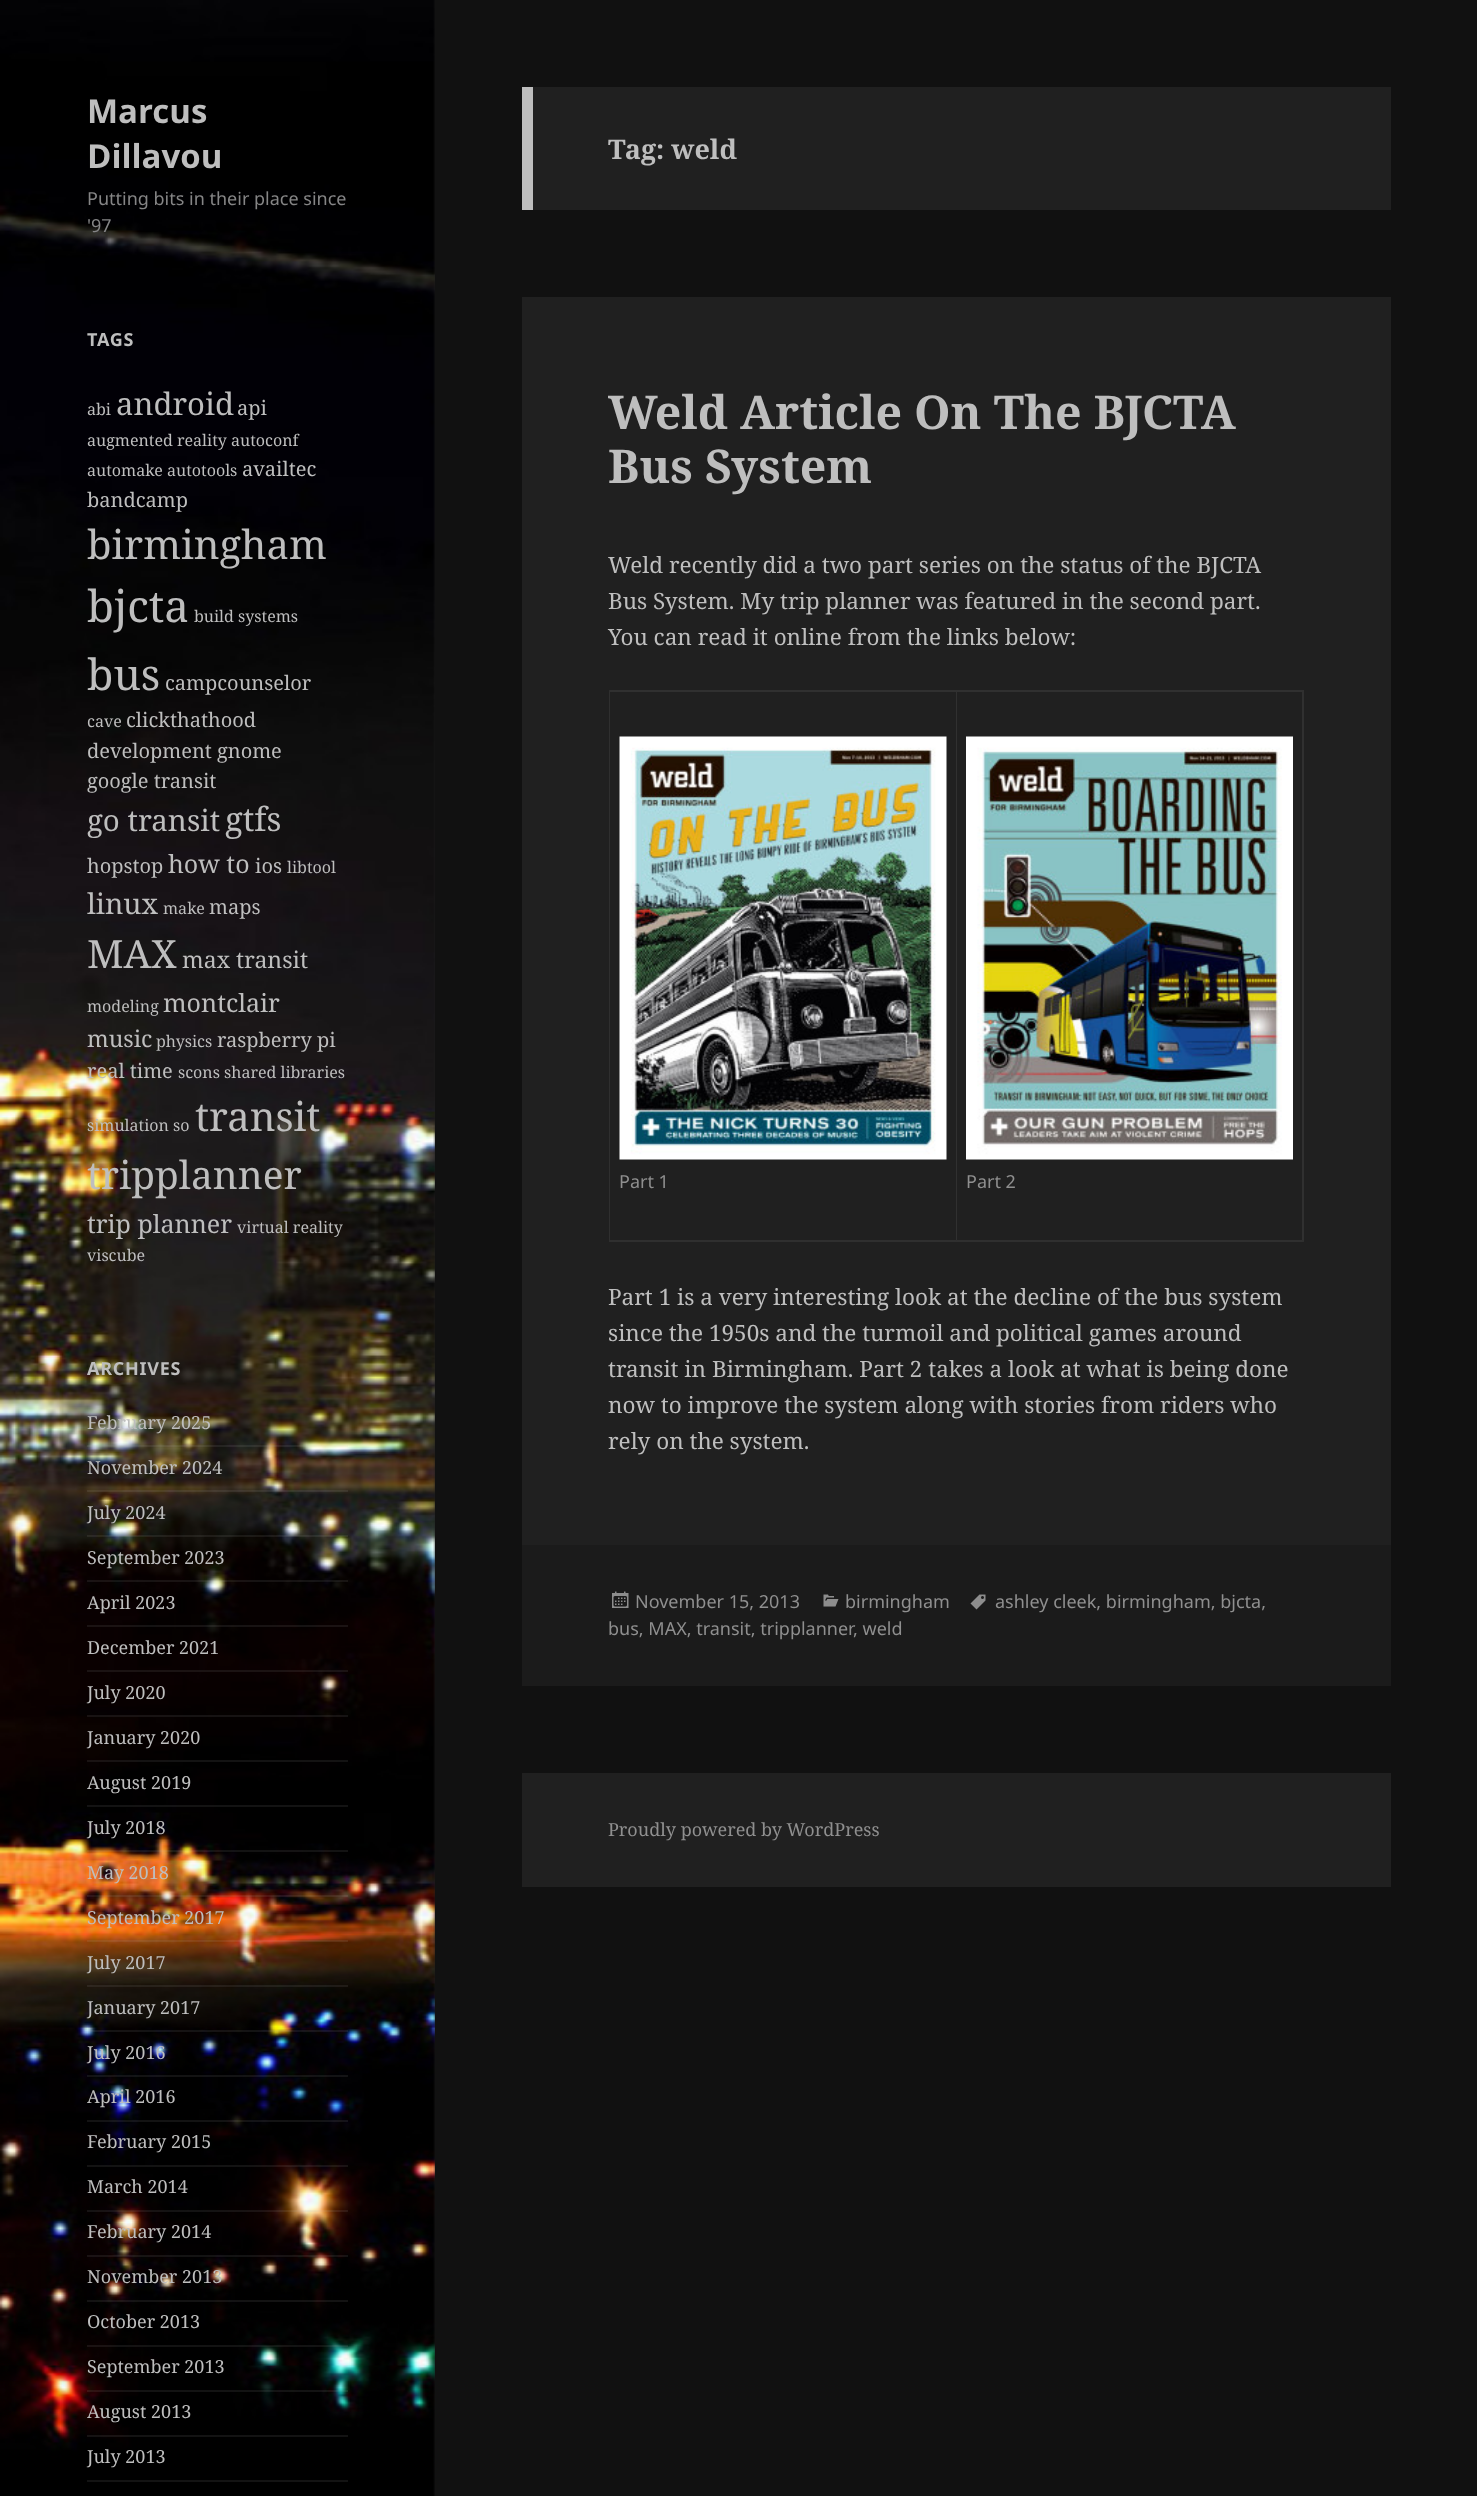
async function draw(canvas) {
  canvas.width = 1477;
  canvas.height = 2496;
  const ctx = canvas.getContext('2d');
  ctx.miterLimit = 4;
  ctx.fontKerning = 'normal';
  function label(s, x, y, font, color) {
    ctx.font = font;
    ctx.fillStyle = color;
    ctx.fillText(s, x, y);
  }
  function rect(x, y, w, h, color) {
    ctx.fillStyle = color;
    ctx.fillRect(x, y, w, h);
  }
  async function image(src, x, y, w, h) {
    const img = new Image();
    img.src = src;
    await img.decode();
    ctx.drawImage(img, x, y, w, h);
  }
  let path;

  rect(0, 0, 1477, 2496, '#111');
  rect(433, 0, 2, 2496, '#202020');
  await image('assets/img1.png', 0, 0, 435, 2496);
  label('Marcus', 87, 123, 'bold 33px Noto Sans', '#bebebe');
  label('Dillavou', 87, 168, 'bold 33px Noto Sans', '#bebebe');
  label('Putting bits in their place since', 87, 205, '18px Noto Sans', '#858586');
  label('\'97', 87, 232, '18px Noto Sans', '#858586');
  ctx.letterSpacing = '0.75px';
  label('TAGS', 87, 346, 'bold 18px Noto Sans', '#bebebe');
  ctx.letterSpacing = '0px';
  label('abi', 87, 415, '16px Noto Serif', '#bebebe');
  label('android', 116, 415, '31px Noto Serif', '#bebebe');
  label('api', 237, 415, '20px Noto Serif', '#bebebe');
  label('augmented reality', 87, 446, '16px Noto Serif', '#bebebe');
  label('autoconf', 231, 446, '16px Noto Serif', '#bebebe');
  label('automake', 87, 476, '16px Noto Serif', '#bebebe');
  label('autotools', 167, 476, '16px Noto Serif', '#bebebe');
  label('availtec', 242, 476, '20px Noto Serif', '#bebebe');
  label('bandcamp', 87, 507, '20px Noto Serif', '#bebebe');
  label('birmingham', 87, 559, '40px Noto Serif', '#bebebe');
  label('bjcta', 87, 622, '44px Noto Serif', '#bebebe');
  label('build systems', 194, 622, '16px Noto Serif', '#bebebe');
  label('bus', 87, 690, '43px Noto Serif', '#bebebe');
  label('campcounselor', 165, 690, '20px Noto Serif', '#bebebe');
  label('cave', 87, 727, '16px Noto Serif', '#bebebe');
  label('clickthathood', 126, 727, '20px Noto Serif', '#bebebe');
  label('development', 87, 758, '20px Noto Serif', '#bebebe');
  label('gnome', 217, 758, '20px Noto Serif', '#bebebe');
  label('google transit', 87, 788, '20px Noto Serif', '#bebebe');
  label('go transit', 87, 831, '29.5px Noto Serif', '#bebebe');
  label('gtfs', 225, 831, '33px Noto Serif', '#bebebe');
  label('hopstop', 87, 873, '20px Noto Serif', '#bebebe');
  label('how to', 168, 873, '25px Noto Serif', '#bebebe');
  label('ios', 255, 873, '20px Noto Serif', '#bebebe');
  label('libtool', 287, 873, '16px Noto Serif', '#bebebe');
  label('linux', 87, 914, '28.5px Noto Serif', '#bebebe');
  label('make', 163, 914, '16px Noto Serif', '#bebebe');
  label('maps', 209, 914, '20px Noto Serif', '#bebebe');
  label('MAX', 87, 968, '39px Noto Serif', '#bebebe');
  label('max transit', 182, 968, '23px Noto Serif', '#bebebe');
  label('modeling', 87, 1012, '16px Noto Serif', '#bebebe');
  label('montclair', 163, 1012, '25px Noto Serif', '#bebebe');
  label('music', 87, 1047, '23px Noto Serif', '#bebebe');
  label('physics', 156, 1047, '16px Noto Serif', '#bebebe');
  label('raspberry pi', 217, 1047, '20px Noto Serif', '#bebebe');
  label('real time', 87, 1078, '20px Noto Serif', '#bebebe');
  label('scons', 178, 1078, '16px Noto Serif', '#bebebe');
  label('shared libraries', 224, 1078, '16px Noto Serif', '#bebebe');
  label('simulation', 87, 1131, '16px Noto Serif', '#bebebe');
  label('so', 173, 1131, '16px Noto Serif', '#bebebe');
  label('transit', 195, 1131, '40px Noto Serif', '#bebebe');
  label('tripplanner', 87, 1189, '38.75px Noto Serif', '#bebebe');
  label('trip planner', 87, 1233, '25px Noto Serif', '#bebebe');
  label('virtual reality', 237, 1233, '16px Noto Serif', '#bebebe');
  label('viscube', 87, 1261, '16px Noto Serif', '#bebebe');
  ctx.letterSpacing = '0.75px';
  label('ARCHIVES', 87, 1375, 'bold 18px Noto Sans', '#bebebe');
  ctx.letterSpacing = '0px';
  label('February 2025', 87, 1429, '18px Noto Serif', '#bebebe');
  rect(87, 1445, 261, 2, '#bebebe1a');
  label('November 2024', 87, 1474, '18px Noto Serif', '#bebebe');
  rect(87, 1490, 261, 2, '#bebebe1a');
  label('July 2024', 87, 1519, '18px Noto Serif', '#bebebe');
  rect(87, 1535, 261, 2, '#bebebe1a');
  label('September 2023', 87, 1564, '18px Noto Serif', '#bebebe');
  rect(87, 1580, 261, 2, '#bebebe1a');
  label('April 2023', 87, 1609, '18px Noto Serif', '#bebebe');
  rect(87, 1625, 261, 2, '#bebebe1a');
  label('December 2021', 87, 1654, '18px Noto Serif', '#bebebe');
  rect(87, 1670, 261, 2, '#bebebe1a');
  label('July 2020', 87, 1699, '18px Noto Serif', '#bebebe');
  rect(87, 1715, 261, 2, '#bebebe1a');
  label('January 2020', 87, 1744, '18px Noto Serif', '#bebebe');
  rect(87, 1760, 261, 2, '#bebebe1a');
  label('August 2019', 87, 1789, '18px Noto Serif', '#bebebe');
  rect(87, 1805, 261, 2, '#bebebe1a');
  label('July 2018', 87, 1834, '18px Noto Serif', '#bebebe');
  rect(87, 1850, 261, 2, '#bebebe1a');
  label('May 2018', 87, 1879, '18px Noto Serif', '#bebebe');
  rect(87, 1895, 261, 2, '#bebebe1a');
  label('September 2017', 87, 1924, '18px Noto Serif', '#bebebe');
  rect(87, 1940, 261, 2, '#bebebe1a');
  label('July 2017', 87, 1969, '18px Noto Serif', '#bebebe');
  rect(87, 1985, 261, 2, '#bebebe1a');
  label('January 2017', 87, 2014, '18px Noto Serif', '#bebebe');
  rect(87, 2030, 261, 2, '#bebebe1a');
  label('July 2016', 87, 2059, '18px Noto Serif', '#bebebe');
  rect(87, 2075, 261, 2, '#bebebe1a');
  label('April 2016', 87, 2103, '18px Noto Serif', '#bebebe');
  rect(87, 2120, 261, 2, '#bebebe1a');
  label('February 2015', 87, 2148, '18px Noto Serif', '#bebebe');
  rect(87, 2165, 261, 2, '#bebebe1a');
  label('March 2014', 87, 2193, '18px Noto Serif', '#bebebe');
  rect(87, 2210, 261, 2, '#bebebe1a');
  label('February 2014', 87, 2238, '18px Noto Serif', '#bebebe');
  rect(87, 2255, 261, 2, '#bebebe1a');
  label('November 2013', 87, 2283, '18px Noto Serif', '#bebebe');
  rect(87, 2300, 261, 2, '#bebebe1a');
  label('October 2013', 87, 2328, '18px Noto Serif', '#bebebe');
  rect(87, 2345, 261, 2, '#bebebe1a');
  label('September 2013', 87, 2373, '18px Noto Serif', '#bebebe');
  rect(87, 2390, 261, 2, '#bebebe1a');
  label('August 2013', 87, 2418, '18px Noto Serif', '#bebebe');
  rect(87, 2435, 261, 2, '#bebebe1a');
  label('July 2013', 87, 2463, '18px Noto Serif', '#bebebe');
  rect(87, 2480, 261, 2, '#131313');
  rect(533, 87, 858, 123, '#202020');
  rect(522, 87, 11, 123, '#bebebe');
  label('Tag: weld', 608, 159, 'bold 27px Noto Serif', '#bebebe');
  rect(522, 297, 869, 1248, '#202020');
  label('Weld Article On The BJCTA', 608, 429, 'bold 46.5px Noto Serif', '#bebebe');
  label('Bus System', 608, 483, 'bold 46.5px Noto Serif', '#bebebe');
  label('Weld recently did a two part series on the status of the BJCTA', 608, 573, '22.5px Noto Serif', '#bebebe');
  label('Bus System. My trip planner was featured in the second part.', 608, 609, '22.5px Noto Serif', '#bebebe');
  label('You can read it online from the links below:', 608, 645, '22.5px Noto Serif', '#bebebe');
  ctx.fillStyle = '#303030';
  path = new Path2D('M609 690H1304V692H610Z');
  ctx.fill(path);
  ctx.fillStyle = '#bebebe1a';
  path = new Path2D('M609 1242V690L610 692V1242Z');
  ctx.fill(path);
  ctx.fillStyle = '#303030';
  path = new Path2D('M957 692V1242L956 1240V692Z');
  ctx.fill(path);
  ctx.fillStyle = '#bebebe1a';
  path = new Path2D('M957 1242H610V1240H956Z');
  ctx.fill(path);
  await image('assets/img2.png', 619, 736, 328, 424);
  label('Part 1', 619, 1188, '18px Noto Sans', '#8f8f8f');
  ctx.fillStyle = '#303030';
  path = new Path2D('M1304 692V1242L1302 1240V692Z');
  ctx.fill(path);
  ctx.fillStyle = '#bebebe1a';
  path = new Path2D('M1304 1242H957V1240H1302Z');
  ctx.fill(path);
  await image('assets/img3.png', 966, 736, 327, 424);
  label('Part 2', 966, 1188, '18px Noto Sans', '#8f8f8f');
  label('Part 1 is a very interesting look at the decline of the bus system', 608, 1305, '22.5px Noto Serif', '#bebebe');
  label('since the 1950s and the turmoil and political games around', 608, 1341, '22.5px Noto Serif', '#bebebe');
  label('transit in Birmingham. Part 2 takes a look at what is being done', 608, 1377, '22.5px Noto Serif', '#bebebe');
  label('now to improve the system along with stories from riders who', 608, 1413, '22.5px Noto Serif', '#bebebe');
  label('rely on the system.', 608, 1449, '22.5px Noto Serif', '#bebebe');
  rect(522, 1545, 869, 141, '#1b1b1b');
  await image('assets/img4.png', 970, 1594, 16, 16);
  label('ashley cleek, birmingham, bjcta,', 995, 1608, '18px Noto Sans', '#8f8f8f');
  label('bus, MAX, transit, tripplanner', 608, 1635, '18px Noto Sans', '#8f8f8f');
  label(', weld', 853, 1635, '18px Noto Sans', '#8f8f8f');
  await image('assets/img5.png', 612, 1591, 17, 17);
  label('November 15, 2013', 635, 1608, '18px Noto Sans', '#8f8f8f');
  await image('assets/img6.png', 823, 1594, 16, 13);
  label('birmingham', 845, 1608, '18px Noto Sans', '#8f8f8f');
  rect(522, 1773, 869, 114, '#202020');
  label('Proudly powered by WordPress', 608, 1836, '18px Noto Serif', '#8f8f8f');
}

draw(document.querySelector('canvas'));
